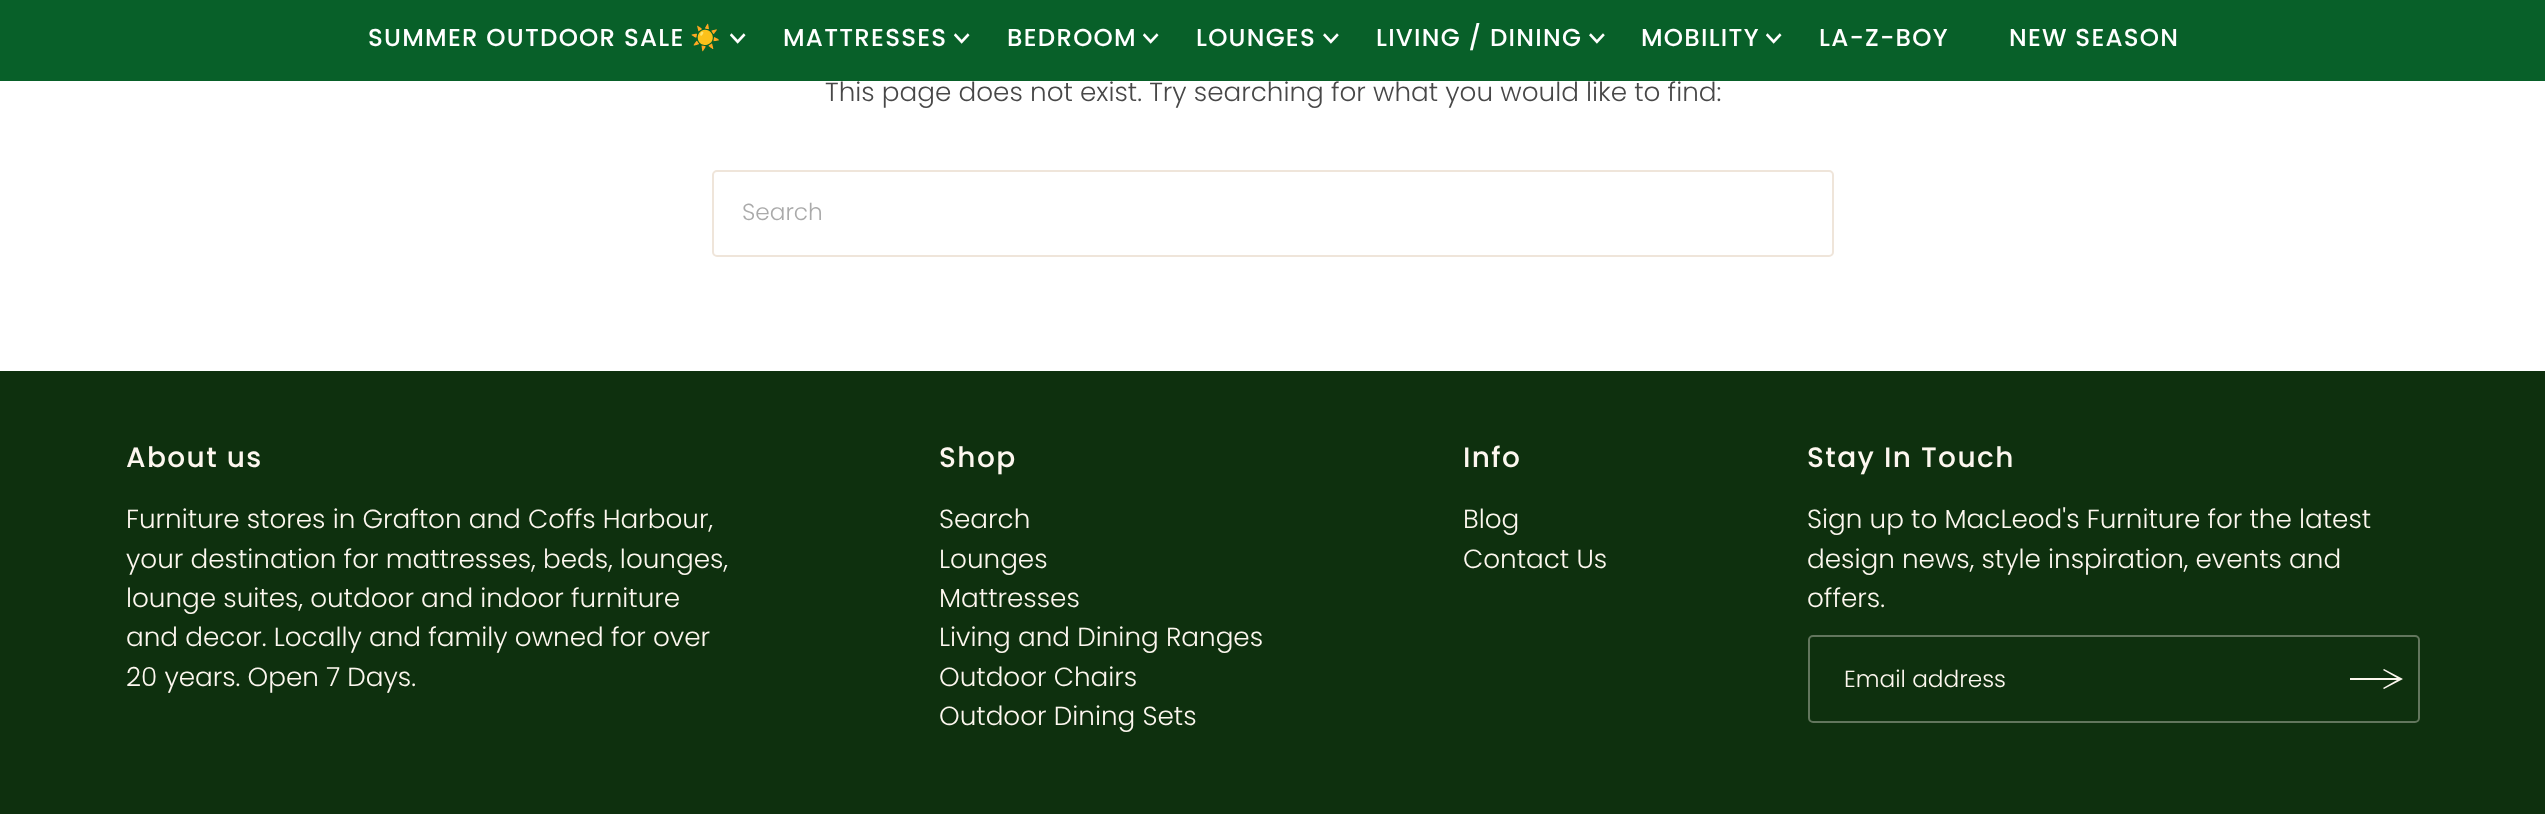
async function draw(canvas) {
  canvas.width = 2545;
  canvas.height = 814;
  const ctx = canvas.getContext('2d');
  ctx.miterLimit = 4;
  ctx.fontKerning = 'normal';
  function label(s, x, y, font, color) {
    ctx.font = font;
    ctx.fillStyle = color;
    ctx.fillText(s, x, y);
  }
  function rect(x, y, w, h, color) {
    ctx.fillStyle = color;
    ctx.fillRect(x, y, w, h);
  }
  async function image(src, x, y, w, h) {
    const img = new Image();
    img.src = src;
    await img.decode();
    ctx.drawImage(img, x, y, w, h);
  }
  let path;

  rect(0, 0, 2545, 814, '#fff');
  rect(0, 0, 2545, 81, '#086029');
  ctx.letterSpacing = '1.25px';
  label('SUMMER OUTDOOR SALE', 368, 46, '500 24.5px Poppins', '#fff');
  label('☀️', 690, 46, '24.5px Noto Color Emoji', '#fff');
  await image('assets/img1.png', 730, 33, 16, 11);
  label('MATTRESSES', 783, 46, '500 24.5px Poppins', '#fff');
  await image('assets/img1.png', 954, 33, 16, 11);
  label('BEDROOM', 1007, 46, '500 24.5px Poppins', '#fff');
  await image('assets/img1.png', 1143, 33, 16, 11);
  label('LOUNGES', 1196, 46, '500 24.5px Poppins', '#fff');
  await image('assets/img2.png', 1323, 33, 16, 11);
  label('LIVING / DINING', 1376, 46, '500 24.5px Poppins', '#fff');
  await image('assets/img2.png', 1589, 33, 16, 11);
  label('MOBILITY', 1641, 46, '500 24.5px Poppins', '#fff');
  await image('assets/img1.png', 1766, 33, 16, 11);
  label('LA-Z-BOY', 1819, 46, '500 24.5px Poppins', '#fff');
  label('NEW SEASON', 2009, 46, '500 24.5px Poppins', '#fff');
  ctx.letterSpacing = '0px';
  label('This page does not exist. Try searching for what you would like to find:', 825, 101, '300 26.25px Poppins', '#484848');
  ctx.beginPath();
  ctx.roundRect(713, 171, 1120, 85, 4);
  ctx.strokeStyle = '#efe5da';
  ctx.lineWidth = 2;
  ctx.stroke();
  label('Search', 742, 220, '300 23.25px Poppins', '#aaa');
  rect(0, 371, 2545, 443, '#0e300e');
  ctx.letterSpacing = '1.4px';
  label('About us', 126, 467, '500 28px Poppins', '#fdf7ef');
  ctx.letterSpacing = '0px';
  label('Furniture stores in Grafton and Coffs Harbour,', 126, 528, '300 26.25px Poppins', '#fdf7ef');
  label('your destination for mattresses, beds, lounges,', 126, 568, '300 26.25px Poppins', '#fdf7ef');
  label('lounge suites, outdoor and indoor furniture', 126, 607, '300 26.25px Poppins', '#fdf7ef');
  label('and decor. Locally and family owned for over', 126, 646, '300 26.25px Poppins', '#fdf7ef');
  label('20 years. Open 7 Days.', 126, 686, '300 26.25px Poppins', '#fdf7ef');
  ctx.letterSpacing = '1.4px';
  label('Shop', 939, 467, '500 28px Poppins', '#fdf7ef');
  ctx.letterSpacing = '0px';
  label('Search', 939, 528, '300 26.25px Poppins', '#fdf7ef');
  label('Lounges', 939, 568, '300 26.25px Poppins', '#fdf7ef');
  label('Mattresses', 939, 607, '300 26.25px Poppins', '#fdf7ef');
  label('Living and Dining Ranges', 939, 646, '300 26.25px Poppins', '#fdf7ef');
  label('Outdoor Chairs', 939, 686, '300 26.25px Poppins', '#fdf7ef');
  label('Outdoor Dining Sets', 939, 725, '300 26.25px Poppins', '#fdf7ef');
  ctx.letterSpacing = '1.4px';
  label('Info', 1463, 467, '500 28px Poppins', '#fdf7ef');
  ctx.letterSpacing = '0px';
  label('Blog', 1463, 528, '300 26.25px Poppins', '#fdf7ef');
  label('Contact Us', 1463, 568, '300 26.25px Poppins', '#fdf7ef');
  ctx.letterSpacing = '1.4px';
  label('Stay In Touch', 1807, 467, '500 28px Poppins', '#fdf7ef');
  ctx.letterSpacing = '0px';
  label('Sign up to MacLeod\'s Furniture for the latest', 1807, 528, '300 26.25px Poppins', '#fdf7ef');
  label('design news, style inspiration, events and', 1807, 568, '300 26.25px Poppins', '#fdf7ef');
  label('offers.', 1807, 607, '300 26.25px Poppins', '#fdf7ef');
  ctx.beginPath();
  ctx.roundRect(1809, 636, 610, 86, 4);
  ctx.strokeStyle = '#62765d';
  ctx.stroke();
  label('Email address', 1844, 687, '300 23.25px Poppins', '#fdf7ef');
  path = new Path2D('M2384 669L2403 679L2384 689L2383 688L2397 680H2350V678H2397L2383 670Z');
  ctx.fill(path);
}

draw(document.querySelector('canvas'));
